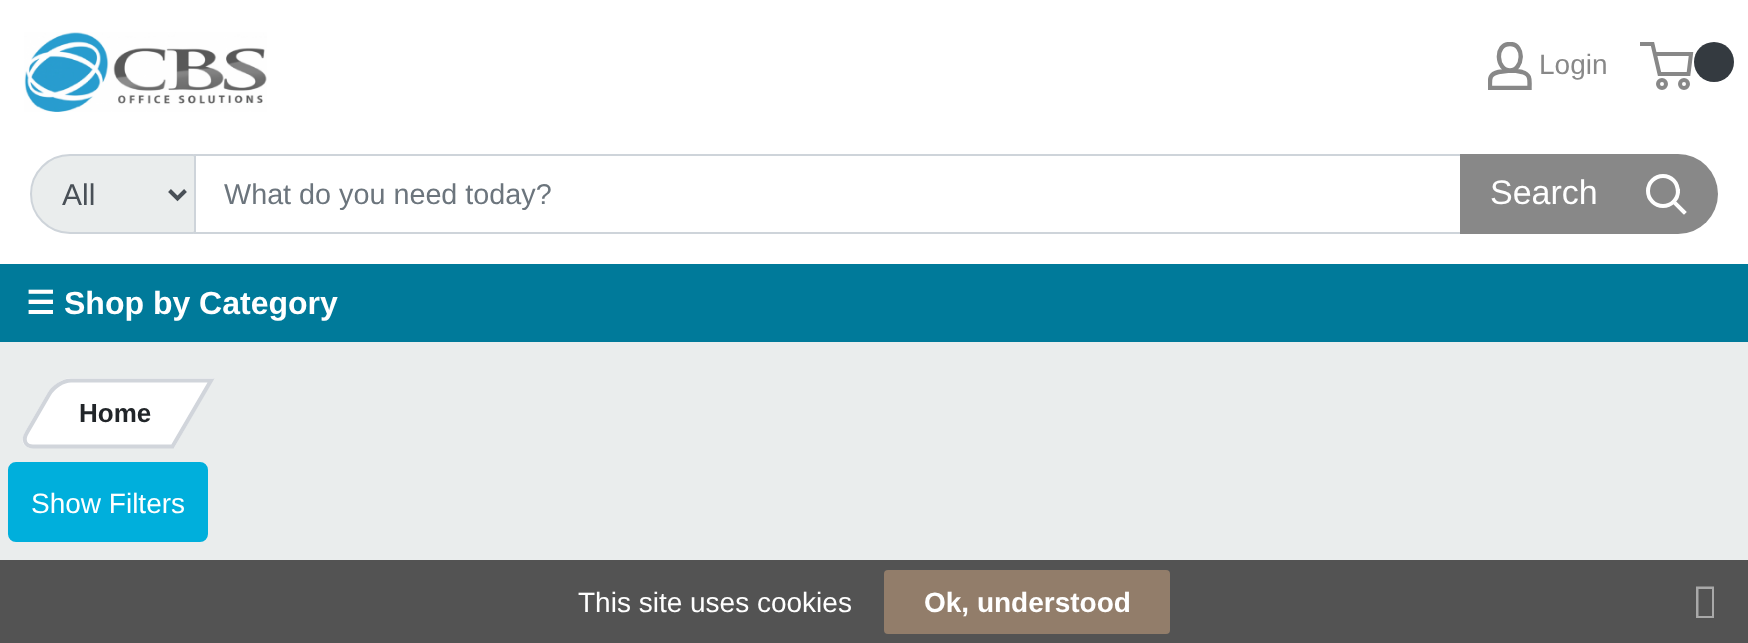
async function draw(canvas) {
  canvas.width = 1748;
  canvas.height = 643;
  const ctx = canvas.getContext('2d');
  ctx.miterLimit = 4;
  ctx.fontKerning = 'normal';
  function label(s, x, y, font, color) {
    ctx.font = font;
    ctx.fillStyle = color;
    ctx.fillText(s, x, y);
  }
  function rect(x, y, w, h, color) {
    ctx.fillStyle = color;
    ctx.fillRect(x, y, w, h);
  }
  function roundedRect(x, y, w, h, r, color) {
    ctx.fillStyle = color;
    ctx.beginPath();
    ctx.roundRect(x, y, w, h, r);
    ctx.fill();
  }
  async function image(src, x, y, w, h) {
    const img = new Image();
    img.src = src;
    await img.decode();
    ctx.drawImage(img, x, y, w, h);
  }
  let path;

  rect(0, 0, 1748, 643, '#eaeded');
  rect(0, 0, 1748, 264, '#fff');
  ctx.save();
  ctx.beginPath();
  ctx.rect(1488, 42, 44, 48);
  ctx.clip();
  path = new Path2D('M1510 70.5C1514 70.5 1518 71 1522 72C1531 74.5 1529.5 80 1529.5 88H1490C1490 79 1488.5 74.5 1498.5 72ZM1510 70.5C1496.5 70.5 1494 44 1510 44C1525.5 44 1523 70.5 1510 70.5Z');
  ctx.strokeStyle = '#888';
  ctx.lineWidth = 4.4;
  ctx.stroke(path);
  ctx.restore();
  label('Login', 1539, 74, '28px Liberation Sans', '#888');
  path = new Path2D('M1654.5 54H1691L1688.5 74H1659.5L1652.5 44H1640');
  ctx.strokeStyle = '#888';
  ctx.lineWidth = 4;
  ctx.stroke(path);
  ctx.fillStyle = '#343a40';
  ctx.beginPath();
  ctx.arc(1714, 62, 20, 0, 2 * Math.PI);
  ctx.fill();
  ctx.beginPath();
  ctx.arc(1662, 84, 4, 0, 2 * Math.PI);
  ctx.stroke();
  ctx.beginPath();
  ctx.arc(1684, 84, 4, 0, 2 * Math.PI);
  ctx.stroke();
  await image('assets/img1.png', 24, 32, 243, 80);
  ctx.fillStyle = '#eaeded';
  ctx.beginPath();
  ctx.roundRect(31, 155, 164, 78, [39, 2, 2, 39]);
  ctx.fill();
  ctx.strokeStyle = '#ced4da';
  ctx.lineWidth = 2;
  ctx.stroke();
  path = new Path2D('M169.5 190.5L177.5 198.5L185.5 190.5');
  ctx.strokeStyle = '#495057';
  ctx.lineWidth = 4;
  ctx.stroke(path);
  label('All', 62, 205, '30px Liberation Sans', '#495057');
  ctx.strokeStyle = '#ced4da';
  ctx.lineWidth = 2;
  ctx.strokeRect(195, 155, 1266, 78);
  label('What do you need today?', 224, 204, '28.75px Liberation Sans', '#6c757d');
  ctx.fillStyle = '#888';
  ctx.beginPath();
  ctx.roundRect(1460, 154, 258, 80, [0, 40, 40, 0]);
  ctx.fill();
  label('Search', 1490, 204, '34px Liberation Sans', '#fff');
  path = new Path2D('M1684 212L1674 202');
  ctx.strokeStyle = '#fff';
  ctx.lineWidth = 4;
  ctx.lineCap = 'square';
  ctx.stroke(path);
  ctx.beginPath();
  ctx.arc(1663, 191, 15, 0, 2 * Math.PI);
  ctx.stroke();
  rect(0, 264, 1748, 78, '#007a9a');
  label('☰', 26, 314, 'bold 32px DejaVu Sans', '#fff');
  label('Shop by Category', 64, 314, 'bold 32px Liberation Sans', '#fff');
  path = new Path2D('M72 378H214L174 448H32C23 448 20 441 25 432L47 394C52 385 63 378 72 378Z');
  ctx.fill(path);
  path = new Path2D('M71 380.5H211L172.5 446.5H33C25 446.5 22.5 440 27 432.5L49 394.5C53.5 386.5 63.5 380.5 71 380.5Z');
  ctx.strokeStyle = '#d1d5db';
  ctx.lineCap = 'butt';
  ctx.stroke(path);
  label('Home', 79, 422, 'bold 26px Liberation Sans', '#212529');
  ctx.fillStyle = '#00afdc';
  ctx.beginPath();
  ctx.roundRect(9, 463, 198, 78, 7);
  ctx.fill();
  ctx.strokeStyle = '#00afdc';
  ctx.lineWidth = 2;
  ctx.stroke();
  label('Show Filters', 31, 513, '28px Liberation Sans', '#fff');
  rect(0, 560, 1748, 83, '#535353');
  label('This site uses cookies', 578, 612, '28px Liberation Sans', '#fff');
  roundedRect(884, 570, 286, 64, 4, '#927d6a');
  label('Ok, understood', 924, 612, 'bold 28px Liberation Sans', '#fff');
  ctx.fillStyle = '#a9a9a9';
  path = new Path2D('M1696 618V586.5H1714V618ZM1698.5 616H1712V589H1698.5Z');
  ctx.fill(path);
}

draw(document.querySelector('canvas'));
